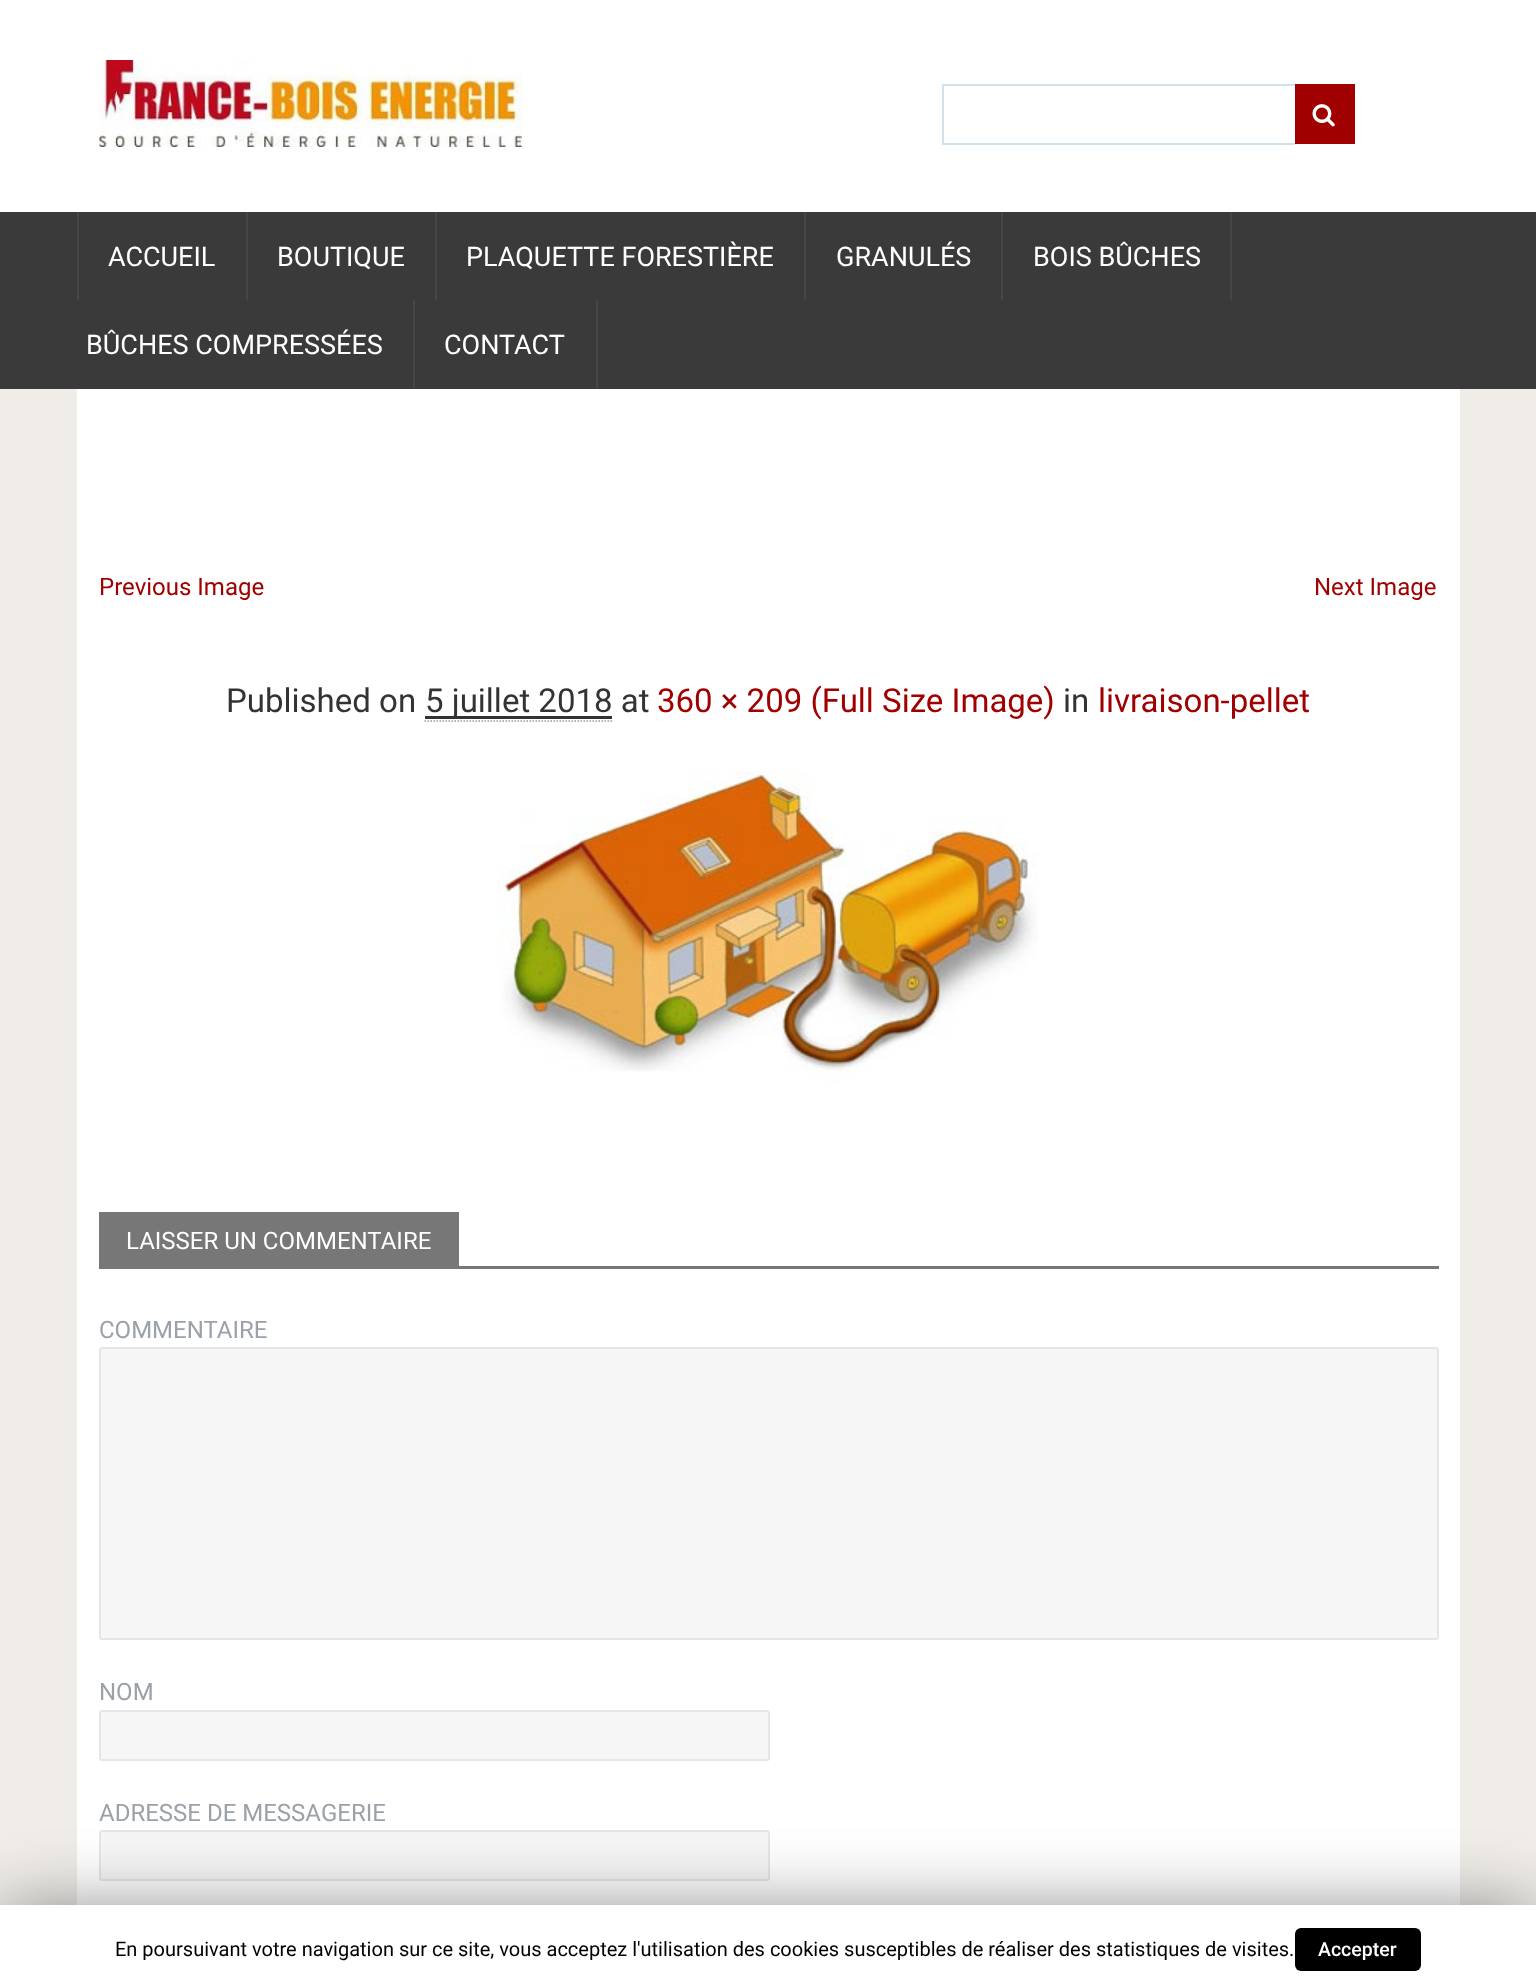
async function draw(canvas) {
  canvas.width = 1536;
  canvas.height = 1985;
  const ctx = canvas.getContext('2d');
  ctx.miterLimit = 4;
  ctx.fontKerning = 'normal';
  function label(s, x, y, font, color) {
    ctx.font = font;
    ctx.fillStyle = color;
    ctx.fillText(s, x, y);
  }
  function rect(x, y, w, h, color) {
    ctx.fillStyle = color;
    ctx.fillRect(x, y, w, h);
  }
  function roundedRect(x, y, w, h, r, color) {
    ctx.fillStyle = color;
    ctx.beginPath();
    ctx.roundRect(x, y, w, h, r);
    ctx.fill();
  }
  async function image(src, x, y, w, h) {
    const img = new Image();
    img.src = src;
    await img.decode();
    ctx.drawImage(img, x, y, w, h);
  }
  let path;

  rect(0, 0, 1536, 1985, '#f0ede9');
  rect(0, 0, 1536, 212, '#fff');
  await image('assets/img1.png', 99, 60, 423, 87);
  rect(942, 84, 353, 2, '#d0e2ec');
  rect(942, 143, 353, 2, '#d0e2ec');
  rect(942, 84, 2, 60, '#d0e2ec');
  rect(1295, 84, 60, 60, '#a00000');
  await image('assets/img2.png', 1312, 104, 23, 23);
  rect(0, 212, 1536, 177, '#3a3a3a');
  rect(246, 212, 2, 88, '#464646');
  rect(77, 212, 2, 88, '#464646');
  label('ACCUEIL', 108, 266, '27px Roboto', '#fff');
  rect(435, 212, 2, 88, '#464646');
  label('BOUTIQUE', 277, 266, '27px Roboto', '#fff');
  rect(804, 212, 2, 88, '#464646');
  label('PLAQUETTE FORESTIÈRE', 466, 266, '27px Roboto', '#fff');
  rect(1001, 212, 2, 88, '#464646');
  label('GRANULÉS', 836, 266, '27px Roboto', '#fff');
  rect(1230, 212, 2, 88, '#464646');
  label('BOIS BÛCHES', 1033, 266, '27px Roboto', '#fff');
  rect(413, 300, 2, 89, '#464646');
  label('BÛCHES COMPRESSÉES', 86, 354, '27px Roboto', '#fff');
  rect(596, 300, 2, 89, '#464646');
  label('CONTACT', 444, 354, '27px Roboto', '#fff');
  rect(77, 389, 1383, 1516, '#fff');
  label('Previous Image', 99, 595, '24px Roboto', '#a00000');
  label('Next Image', 1314, 595, '24px Roboto', '#a00000');
  label('Published on', 226, 712, '33px Roboto', '#333');
  rect(425, 716, 187, 3, '#333');
  label('5 juillet 2018 at', 425, 712, '33px Roboto', '#333');
  path = new Path2D('M424.5 721H612');
  ctx.strokeStyle = '#999';
  ctx.lineWidth = 1.5;
  ctx.setLineDash([1.5, 1.5]);
  ctx.stroke(path);
  label('360 × 209 (Full Size Image)', 657, 712, '33px Roboto', '#a00000');
  label('in', 1063, 712, '33px Roboto', '#333');
  label('livraison-pellet', 1098, 712, '33px Roboto', '#a00000');
  await image('assets/img3.png', 498, 771, 540, 312);
  rect(99, 1212, 360, 54, '#777');
  label('LAISSER UN COMMENTAIRE', 126, 1249, '24px Roboto', '#fff');
  rect(99, 1266, 1340, 3, '#777');
  label('COMMENTAIRE', 99, 1338, '24px Roboto', '#9ba1a8');
  ctx.fillStyle = '#f6f6f6';
  ctx.beginPath();
  ctx.roundRect(100, 1348, 1338, 291, 2);
  ctx.fill();
  ctx.strokeStyle = '#e4e6e8';
  ctx.lineWidth = 2;
  ctx.setLineDash([]);
  ctx.stroke();
  label('NOM', 99, 1700, '24px Roboto', '#9ba1a8');
  ctx.fillStyle = '#f6f6f6';
  ctx.beginPath();
  ctx.roundRect(100, 1711, 669, 49, 2);
  ctx.fill();
  ctx.stroke();
  label('ADRESSE DE MESSAGERIE', 99, 1821, '24px Roboto', '#9ba1a8');
  ctx.fillStyle = '#f6f6f6';
  ctx.beginPath();
  ctx.roundRect(100, 1831, 669, 49, 2);
  ctx.fill();
  ctx.stroke();
  ctx.fillStyle = '#00000080';
  ctx.filter = 'blur(37.5px)';
  ctx.beginPath();
  ctx.rect(0, 1913, 1536, 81);
  ctx.fill();
  ctx.filter = 'none';
  rect(0, 1905, 1536, 80, '#fff');
  label('En poursuivant votre navigation sur ce site, vous acceptez l\'utilisation des cookies susceptibles de réaliser des statistiques de visites.', 115, 1956, '20px Roboto', '#000');
  roundedRect(1295, 1928, 126, 43, 6, '#000');
  label('Accepter', 1318, 1956, '500 19.5px Roboto', '#fff');
}

draw(document.querySelector('canvas'));
